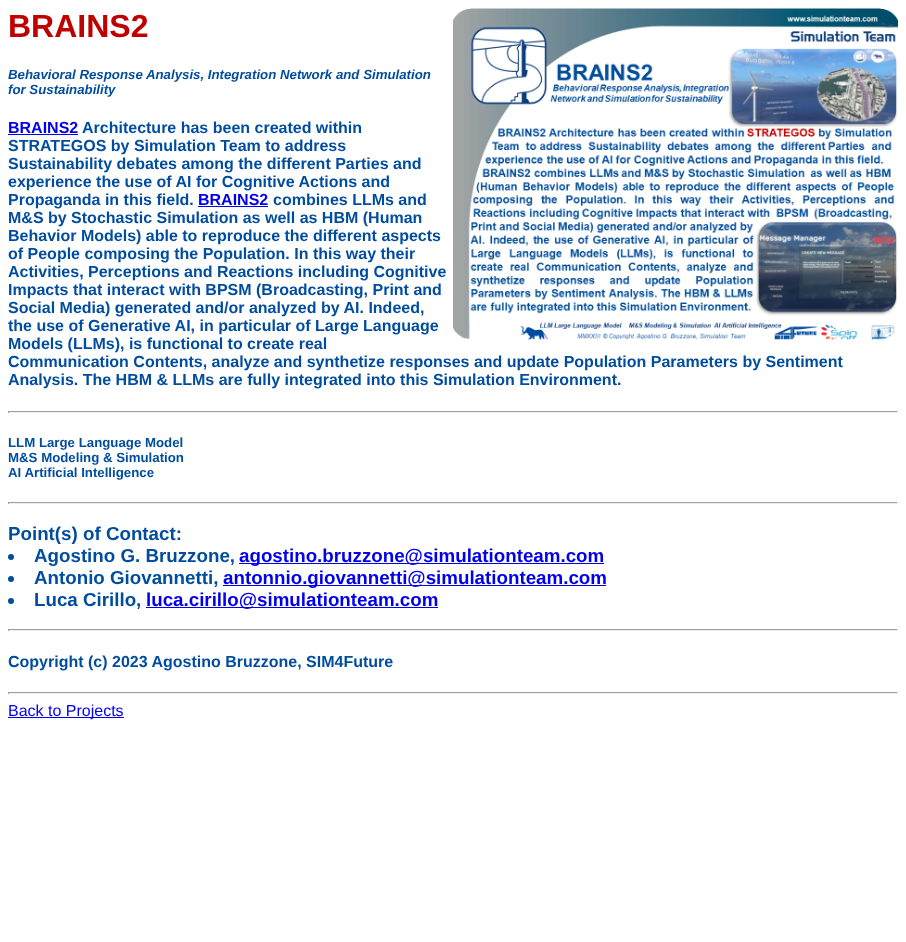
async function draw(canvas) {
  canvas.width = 906;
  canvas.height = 942;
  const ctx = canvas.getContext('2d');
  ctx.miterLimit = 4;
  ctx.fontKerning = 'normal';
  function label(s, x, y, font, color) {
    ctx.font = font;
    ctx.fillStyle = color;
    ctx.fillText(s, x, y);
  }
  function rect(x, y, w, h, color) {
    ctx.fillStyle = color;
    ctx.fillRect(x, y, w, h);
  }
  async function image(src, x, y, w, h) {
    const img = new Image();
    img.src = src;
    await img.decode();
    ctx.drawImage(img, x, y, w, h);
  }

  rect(0, 0, 906, 942, '#fff');
  label('BRAINS2', 8, 37, 'bold 32px Liberation Sans', '#c00000');
  await image('assets/img1.png', 453, 8, 445, 332);
  label('Behavioral Response Analysis, Integration Network and Simulation', 8, 79, 'italic bold 13.25px Liberation Sans', '#004d9f');
  label('for Sustainability', 8, 94, 'italic bold 13.25px Liberation Sans', '#004d9f');
  label('BRAINS2', 8, 133, 'bold 16px Liberation Sans', '#00e');
  rect(8, 134, 70, 1, '#00e');
  label('Architecture has been created within', 82, 133, 'bold 16px Liberation Sans', '#004d9f');
  label('STRATEGOS by Simulation Team to address', 8, 151, 'bold 16px Liberation Sans', '#004d9f');
  label('Sustainability debates among the different Parties and', 8, 169, 'bold 16px Liberation Sans', '#004d9f');
  label('experience the use of AI for Cognitive Actions and', 8, 187, 'bold 16px Liberation Sans', '#004d9f');
  label('Propaganda in this field.', 8, 205, 'bold 16px Liberation Sans', '#004d9f');
  label('BRAINS2', 198, 205, 'bold 16px Liberation Sans', '#00e');
  rect(198, 206, 70, 1, '#00e');
  label('combines LLMs and', 273, 205, 'bold 16px Liberation Sans', '#004d9f');
  label('M&S by Stochastic Simulation as well as HBM (Human', 8, 223, 'bold 16px Liberation Sans', '#004d9f');
  label('Behavior Models) able to reproduce the different aspects', 8, 241, 'bold 16px Liberation Sans', '#004d9f');
  label('of People composing the Population. In this way their', 8, 259, 'bold 16px Liberation Sans', '#004d9f');
  label('Activities, Perceptions and Reactions including Cognitive', 8, 277, 'bold 16px Liberation Sans', '#004d9f');
  label('Impacts that interact with BPSM (Broadcasting, Print and', 8, 295, 'bold 16px Liberation Sans', '#004d9f');
  label('Social Media) generated and/or analyzed by AI. Indeed,', 8, 313, 'bold 16px Liberation Sans', '#004d9f');
  label('the use of Generative AI, in particular of Large Language', 8, 331, 'bold 16px Liberation Sans', '#004d9f');
  label('Models (LLMs), is functional to create real', 8, 349, 'bold 16px Liberation Sans', '#004d9f');
  label('Communication Contents, analyze and synthetize responses and update Population Parameters by Sentiment', 8, 367, 'bold 16px Liberation Sans', '#004d9f');
  label('Analysis. The HBM & LLMs are fully integrated into this Simulation Environment.', 8, 385, 'bold 16px Liberation Sans', '#004d9f');
  rect(8, 411, 890, 1, '#9f9f9f');
  rect(897, 411, 1, 2, '#eee');
  rect(8, 412, 890, 1, '#eee');
  rect(8, 411, 1, 2, '#9f9f9f');
  label('LLM Large Language Model', 8, 447, 'bold 13.25px Liberation Sans', '#004d9f');
  label('M&S Modeling & Simulation', 8, 462, 'bold 13.25px Liberation Sans', '#004d9f');
  label('AI Artificial Intelligence', 8, 477, 'bold 13.25px Liberation Sans', '#004d9f');
  rect(8, 502, 890, 1, '#9f9f9f');
  rect(897, 502, 1, 2, '#eee');
  rect(8, 503, 890, 1, '#eee');
  rect(8, 502, 1, 2, '#9f9f9f');
  label('Point(s) of Contact:', 8, 540, 'bold 18.75px Liberation Sans', '#004d9f');
  ctx.beginPath();
  ctx.arc(11, 557, 3, 0, 2 * Math.PI);
  ctx.fill();
  label('Agostino G. Bruzzone,', 34, 562, 'bold 18.75px Liberation Sans', '#004d9f');
  rect(239, 563, 365, 1, '#00e');
  label('agostino.bruzzone@simulationteam.com', 239, 562, 'bold 18.75px Liberation Sans', '#00e');
  ctx.fillStyle = '#004d9f';
  ctx.beginPath();
  ctx.arc(11, 579, 3, 0, 2 * Math.PI);
  ctx.fill();
  label('Antonio Giovannetti,', 34, 584, 'bold 18.75px Liberation Sans', '#004d9f');
  rect(223, 585, 383, 1, '#00e');
  label('antonnio.giovannetti@simulationteam.com', 223, 584, 'bold 18.75px Liberation Sans', '#00e');
  ctx.fillStyle = '#004d9f';
  ctx.beginPath();
  ctx.arc(11, 601, 3, 0, 2 * Math.PI);
  ctx.fill();
  label('Luca Cirillo,', 34, 606, 'bold 18.75px Liberation Sans', '#004d9f');
  rect(146, 607, 292, 1, '#00e');
  label('luca.cirillo@simulationteam.com', 146, 606, 'bold 18.75px Liberation Sans', '#00e');
  rect(8, 629, 890, 1, '#9f9f9f');
  rect(897, 629, 1, 2, '#eee');
  rect(8, 630, 890, 1, '#eee');
  rect(8, 629, 1, 2, '#9f9f9f');
  label('Copyright (c) 2023 Agostino Bruzzone, SIM4Future', 8, 667, 'bold 16px Liberation Sans', '#004d9f');
  rect(8, 692, 890, 1, '#9f9f9f');
  rect(897, 692, 1, 2, '#eee');
  rect(8, 693, 890, 1, '#eee');
  rect(8, 692, 1, 2, '#9f9f9f');
  rect(8, 717, 116, 1, '#00e');
  label('Back to Projects', 8, 716, '16px Liberation Sans', '#00e');
}

draw(document.querySelector('canvas'));
